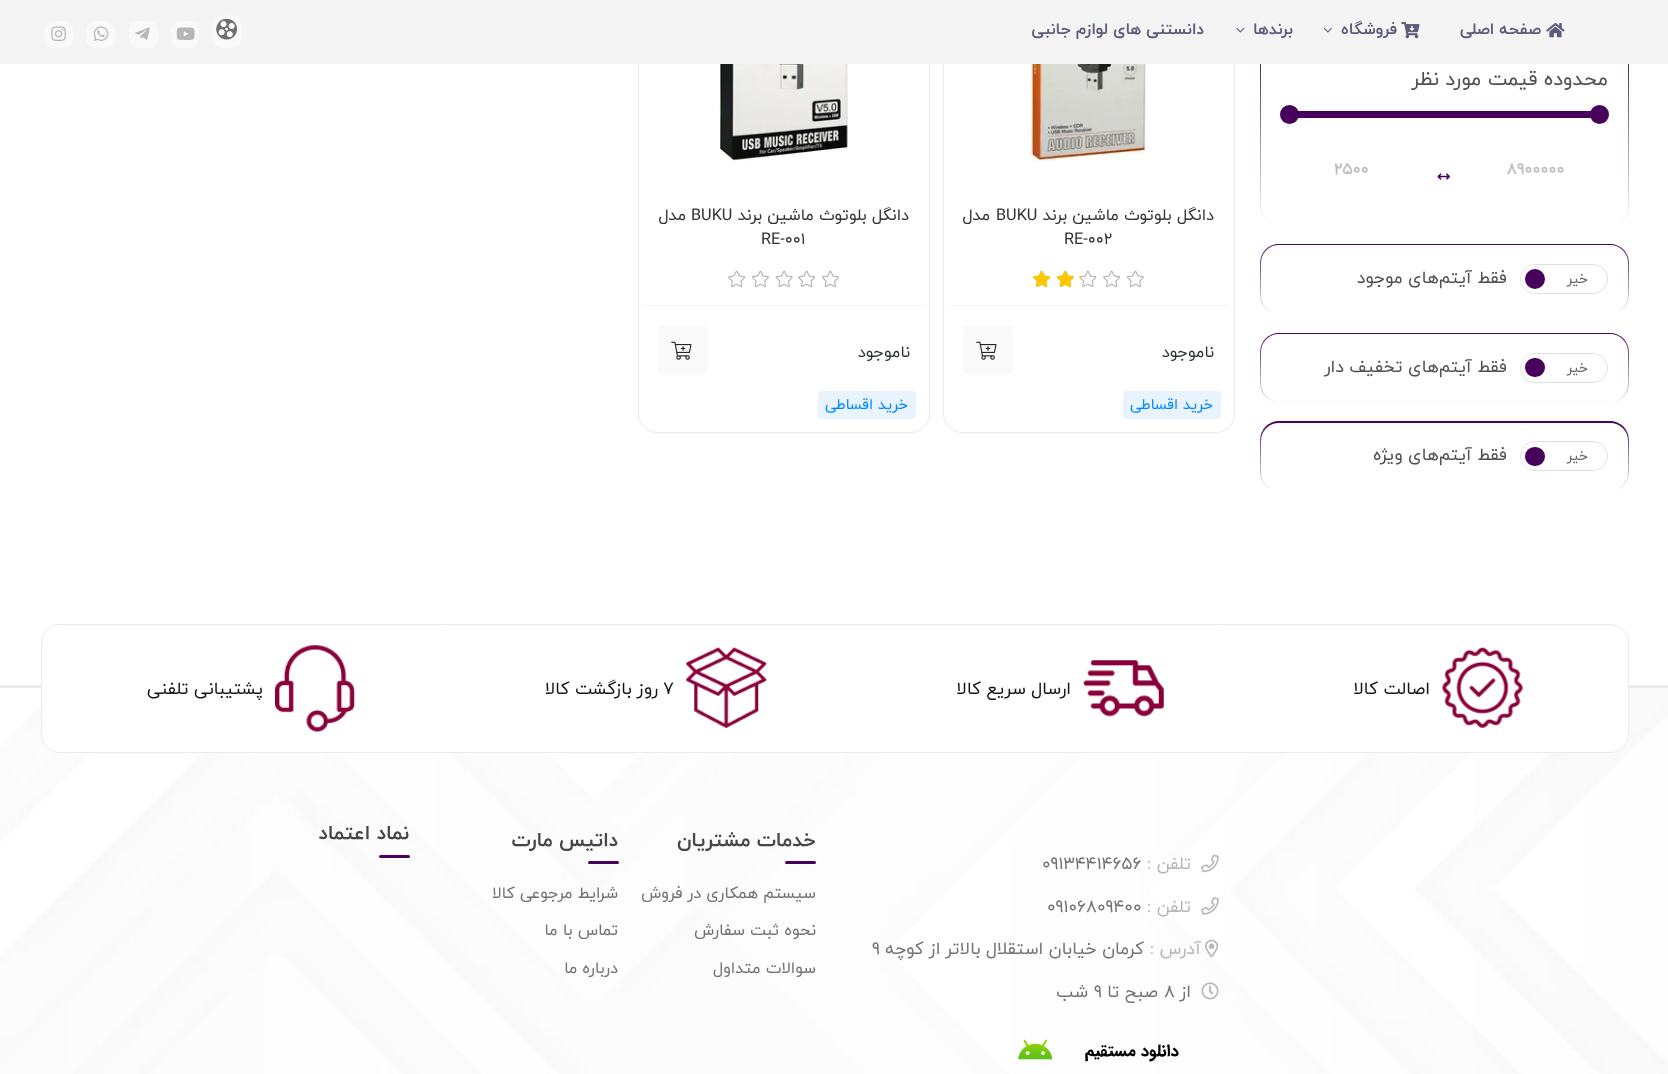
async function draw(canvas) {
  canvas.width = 1668;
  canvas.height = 1074;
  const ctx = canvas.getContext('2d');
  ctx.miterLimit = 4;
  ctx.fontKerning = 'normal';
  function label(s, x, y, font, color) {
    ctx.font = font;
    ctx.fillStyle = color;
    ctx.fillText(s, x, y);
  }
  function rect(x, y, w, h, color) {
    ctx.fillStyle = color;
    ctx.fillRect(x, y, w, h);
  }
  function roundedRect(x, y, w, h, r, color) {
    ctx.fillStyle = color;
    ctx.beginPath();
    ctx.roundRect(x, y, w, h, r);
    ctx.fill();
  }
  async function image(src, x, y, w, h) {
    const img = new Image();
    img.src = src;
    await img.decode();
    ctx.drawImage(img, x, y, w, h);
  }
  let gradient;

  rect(0, 0, 1668, 1074, '#fff');
  gradient = ctx.createLinearGradient(1444, 39, 1444, 225);
  gradient.addColorStop(0, '#47005b');
  gradient.addColorStop(1, '#fff');
  ctx.fillStyle = gradient;
  ctx.beginPath();
  ctx.roundRect(1260, 39, 369, 186, 19);
  ctx.fill();
  roundedRect(1261, 40, 367, 184, 18, '#fff');
  ctx.beginPath();
  ctx.roundRect(943.5, -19.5, 291, 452, 18.5);
  ctx.strokeStyle = '#ebebeb';
  ctx.stroke();
  ctx.beginPath();
  ctx.roundRect(638.5, -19.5, 291, 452, 18.5);
  ctx.stroke();
  rect(0, 0, 1668, 64, '#f5f4f4');
  await image('assets/img1.png', 1546, 23, 19, 15);
  ctx.direction = 'rtl';
  label('صفحه اصلی', 1541, 34, 'bold 16.25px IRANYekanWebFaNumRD', '#5a5c7a');
  await image('assets/img2.png', 1401, 22, 19, 17);
  label('فروشگاه', 1397, 34, 'bold 16.25px IRANYekanWebFaNumRD', '#5a5c7a');
  await image('assets/img3.png', 1323, 27, 9, 6);
  label('برندها', 1293, 34, 'bold 16.25px IRANYekanWebFaNumRD', '#5a5c7a');
  await image('assets/img4.png', 1236, 27, 9, 6);
  label('دانستنی های لوازم جانبی', 1204, 34, 'bold 16.25px IRANYekanWebFaNumRD', '#5a5c7a');
  roundedRect(213, 15, 28, 33, 9, '#faf9f9');
  await image('assets/img5.png', 216, 19, 22, 21);
  roundedRect(171, 21, 28, 27, 9, '#faf9f9');
  await image('assets/img6.png', 176, 27, 19, 13);
  roundedRect(129, 21, 29, 27, 9, '#faf9f9');
  await image('assets/img7.png', 135, 27, 15, 13);
  roundedRect(86, 21, 29, 27, 9, '#faf9f9');
  await image('assets/img8.png', 93, 26, 16, 15);
  roundedRect(45, 21, 28, 27, 9, '#faf9f9');
  await image('assets/img9.png', 51, 26, 15, 16);
  label('محدوده قیمت مورد نظر', 1608, 85, '20px IRANYekanWebFaNumRD', '#505050');
  rect(1293, 111, 298, 7, '#47005b');
  ctx.beginPath();
  ctx.arc(1599.5, 114.5, 7.5, 0, 2 * Math.PI);
  ctx.fill();
  ctx.strokeStyle = '#47005b';
  ctx.lineWidth = 4;
  ctx.stroke();
  ctx.beginPath();
  ctx.arc(1289.5, 114.5, 7.5, 0, 2 * Math.PI);
  ctx.fill();
  ctx.stroke();
  ctx.direction = 'ltr';
  label('8900000', 1507, 174, 'bold 16.25px IRANYekanWebFaNumRD', '#bfbebe');
  label('2500', 1334, 174, 'bold 16.25px IRANYekanWebFaNumRD', '#bfbebe');
  await image('assets/img10.png', 1437, 173, 13, 7);
  gradient = ctx.createLinearGradient(1444, 244, 1444, 314);
  gradient.addColorStop(0, '#47005b');
  gradient.addColorStop(1, '#fff');
  ctx.fillStyle = gradient;
  ctx.beginPath();
  ctx.roundRect(1260, 244, 369, 70, 19);
  ctx.fill();
  roundedRect(1261, 245, 367, 68, 18, '#fff');
  ctx.beginPath();
  ctx.roundRect(1520.5, 264.5, 87, 29, 14.5);
  ctx.strokeStyle = '#e0e0e0';
  ctx.lineWidth = 1;
  ctx.stroke();
  ctx.beginPath();
  ctx.roundRect(1535, 265, 71, 28, [0, 14, 14, 0]);
  ctx.fill();
  ctx.direction = 'rtl';
  label('خیر', 1588, 283, '14px IRANYekanWebFaNumRD', '#666');
  ctx.fillStyle = '#47005b';
  ctx.beginPath();
  ctx.arc(1535, 279, 12, 0, 2 * Math.PI);
  ctx.fill();
  ctx.strokeStyle = '#fff';
  ctx.lineWidth = 4;
  ctx.stroke();
  label('فقط آیتم‌های موجود', 1507, 283, '17.5px IRANYekanWebFaNumRD', '#505050');
  gradient = ctx.createLinearGradient(1444, 333, 1444, 403);
  gradient.addColorStop(0, '#47005b');
  gradient.addColorStop(1, '#fff');
  ctx.fillStyle = gradient;
  ctx.beginPath();
  ctx.roundRect(1260, 333, 369, 70, 19);
  ctx.fill();
  roundedRect(1261, 334, 367, 67, 18, '#fff');
  ctx.beginPath();
  ctx.roundRect(1520.5, 353.5, 87, 29, 14.5);
  ctx.strokeStyle = '#e0e0e0';
  ctx.lineWidth = 1;
  ctx.stroke();
  ctx.beginPath();
  ctx.roundRect(1535, 354, 71, 27, [0, 13.5, 13.5, 0]);
  ctx.fill();
  label('خیر', 1588, 372, '14px IRANYekanWebFaNumRD', '#666');
  ctx.fillStyle = '#47005b';
  ctx.beginPath();
  ctx.roundRect(1523, 356, 24, 23, 11.5);
  ctx.fill();
  ctx.strokeStyle = '#fff';
  ctx.lineWidth = 4;
  ctx.stroke();
  label('فقط آیتم‌های تخفیف دار', 1507, 372, '17.5px IRANYekanWebFaNumRD', '#505050');
  gradient = ctx.createLinearGradient(1444, 421, 1444, 491);
  gradient.addColorStop(0, '#47005b');
  gradient.addColorStop(1, '#fff');
  ctx.fillStyle = gradient;
  ctx.beginPath();
  ctx.roundRect(1260, 421, 369, 70, 19);
  ctx.fill();
  roundedRect(1261, 423, 367, 67, 18, '#fff');
  ctx.beginPath();
  ctx.roundRect(1520.5, 441.5, 87, 29, 14.5);
  ctx.strokeStyle = '#e0e0e0';
  ctx.lineWidth = 1;
  ctx.stroke();
  ctx.beginPath();
  ctx.roundRect(1535, 443, 71, 27, [0, 13.5, 13.5, 0]);
  ctx.fill();
  label('خیر', 1588, 460, '14px IRANYekanWebFaNumRD', '#666');
  ctx.fillStyle = '#47005b';
  ctx.beginPath();
  ctx.roundRect(1523, 445, 24, 23, 11.5);
  ctx.fill();
  ctx.strokeStyle = '#fff';
  ctx.lineWidth = 4;
  ctx.stroke();
  label('فقط آیتم‌های ویژه', 1507, 460, '17.5px IRANYekanWebFaNumRD', '#505050');
  await image('assets/img11.png', 1029, 64, 120, 98);
  rect(950, 305, 278, 1, '#f3f3f2');
  label('دانگل بلوتوث ماشین برند', 1214, 220, '16.25px IRANYekanWebFaNumRD', '#333');
  ctx.direction = 'ltr';
  label('BUKU', 996, 220, '16.25px IRANYekanWebFaNumRD', '#333');
  ctx.direction = 'rtl';
  label('مدل', 990, 220, '16.25px IRANYekanWebFaNumRD', '#333');
  ctx.direction = 'ltr';
  label('RE-002', 1064, 244, '16.25px IRANYekanWebFaNumRD', '#333');
  await image('assets/img12.png', 1127, 270, 17, 17);
  await image('assets/img13.png', 1103, 270, 18, 17);
  await image('assets/img14.png', 1079, 270, 18, 17);
  await image('assets/img12.png', 1057, 270, 17, 17);
  await image('assets/img13.png', 1033, 270, 18, 17);
  await image('assets/img15.png', 1079, 276, 2, 4);
  await image('assets/img16.png', 1056, 270, 18, 17);
  await image('assets/img17.png', 1033, 270, 18, 17);
  ctx.direction = 'rtl';
  label('ناموجود', 1214, 357, '16.25px IRANYekanWebFaNumRD', '#2d3436');
  roundedRect(963, 325, 50, 50, 6, '#f9f9f9');
  await image('assets/img18.png', 976, 341, 21, 19);
  roundedRect(1123, 391, 98, 28, 4, '#e8f3fe');
  label('خرید اقساطی', 1213, 409, '15px IRANYekanWebFaNumRD', '#0089ff');
  await image('assets/img19.png', 718, 64, 130, 97);
  rect(645, 305, 278, 1, '#f3f3f2');
  label('دانگل بلوتوث ماشین برند', 909, 220, '16.25px IRANYekanWebFaNumRD', '#333');
  ctx.direction = 'ltr';
  label('BUKU', 691, 220, '16.25px IRANYekanWebFaNumRD', '#333');
  ctx.direction = 'rtl';
  label('مدل', 686, 220, '16.25px IRANYekanWebFaNumRD', '#333');
  ctx.direction = 'ltr';
  label('RE-001', 761, 244, '16.25px IRANYekanWebFaNumRD', '#333');
  await image('assets/img12.png', 822, 270, 17, 17);
  await image('assets/img13.png', 798, 270, 18, 17);
  await image('assets/img20.png', 775, 270, 18, 17);
  await image('assets/img12.png', 752, 270, 17, 17);
  await image('assets/img13.png', 728, 270, 18, 17);
  ctx.direction = 'rtl';
  label('ناموجود', 910, 357, '16.25px IRANYekanWebFaNumRD', '#2d3436');
  roundedRect(658, 325, 50, 50, 6, '#f9f9f9');
  await image('assets/img18.png', 671, 341, 21, 19);
  roundedRect(818, 391, 98, 28, 4, '#e8f3fe');
  label('خرید اقساطی', 908, 409, '15px IRANYekanWebFaNumRD', '#0089ff');
  rect(0, 685, 1668, 3, '#ebebeb');
  await image('assets/img21.png', 0, 688, 1668, 386);
  ctx.fillStyle = '#fff';
  ctx.beginPath();
  ctx.roundRect(41.5, 624.5, 1587, 128, 18.5);
  ctx.fill();
  ctx.strokeStyle = '#ebebeb';
  ctx.lineWidth = 1;
  ctx.stroke();
  await image('assets/img22.png', 1442, 647, 81, 81);
  label('اصالت کالا', 1430, 694, '17.5px IRANYekanWebFaNumRD', '#151515');
  await image('assets/img23.png', 1083, 660, 81, 57);
  label('ارسال سریع کالا', 1071, 694, '17.5px IRANYekanWebFaNumRD', '#151515');
  await image('assets/img24.png', 686, 647, 81, 81);
  ctx.direction = 'ltr';
  label('۷', 663, 694, '17.5px IRANYekanWebFaNumRD', '#151515');
  ctx.direction = 'rtl';
  label('روز بازگشت کالا', 658, 694, '17.5px IRANYekanWebFaNumRD', '#151515');
  await image('assets/img25.png', 275, 645, 80, 87);
  label('پشتیبانی تلفنی', 263, 694, '17.5px IRANYekanWebFaNumRD', '#151515');
  await image('assets/img26.png', 1201, 854, 18, 19);
  label('تلفن :', 1191, 869, '17.5px IRANYekanWebFaNumRD', '#b7b7b7');
  ctx.direction = 'ltr';
  label('09134414656', 1042, 869, '17.5px IRANYekanWebFaNumRD', '#737373');
  await image('assets/img27.png', 1201, 897, 18, 18);
  ctx.direction = 'rtl';
  label('تلفن :', 1191, 912, '17.5px IRANYekanWebFaNumRD', '#b7b7b7');
  ctx.direction = 'ltr';
  label('09106809400', 1047, 912, '17.5px IRANYekanWebFaNumRD', '#737373');
  await image('assets/img28.png', 1205, 939, 14, 19);
  ctx.direction = 'rtl';
  label('آدرس :', 1201, 954, '17.5px IRANYekanWebFaNumRD', '#b7b7b7');
  label('کرمان خیابان استقلال بالاتر از کوچه', 1144, 954, '17.5px IRANYekanWebFaNumRD', '#737373');
  ctx.direction = 'ltr';
  label('9', 872, 954, '17.5px IRANYekanWebFaNumRD', '#737373');
  await image('assets/img29.png', 1201, 982, 18, 18);
  ctx.direction = 'rtl';
  label('از', 1191, 997, '17.5px IRANYekanWebFaNumRD', '#737373');
  ctx.direction = 'ltr';
  label('8', 1164, 997, '17.5px IRANYekanWebFaNumRD', '#737373');
  ctx.direction = 'rtl';
  label('صبح تا', 1158, 997, '17.5px IRANYekanWebFaNumRD', '#737373');
  ctx.direction = 'ltr';
  label('9', 1094, 997, '17.5px IRANYekanWebFaNumRD', '#737373');
  ctx.direction = 'rtl';
  label('شب', 1088, 997, '17.5px IRANYekanWebFaNumRD', '#737373');
  await image('assets/img30.png', 1018, 1039, 161, 23);
  label('خدمات مشتریان', 816, 846, 'bold 20px IRANYekanWebFaNumRD', '#464646');
  roundedRect(785, 861, 31, 3, 1.5, '#47005b');
  label('سیستم همکاری در فروش', 816, 898, '16.25px IRANYekanWebFaNumRD', '#737373');
  label('نحوه ثبت سفارش', 816, 935, '16.25px IRANYekanWebFaNumRD', '#737373');
  label('سوالات متداول', 816, 973, '16.25px IRANYekanWebFaNumRD', '#737373');
  label('داتیس مارت', 618, 846, 'bold 20px IRANYekanWebFaNumRD', '#464646');
  roundedRect(588, 861, 31, 3, 1.5, '#47005b');
  label('شرایط مرجوعی کالا', 618, 898, '16.25px IRANYekanWebFaNumRD', '#737373');
  label('تماس با ما', 618, 935, '16.25px IRANYekanWebFaNumRD', '#737373');
  label('درباره ما', 618, 973, '16.25px IRANYekanWebFaNumRD', '#737373');
  label('نماد اعتماد', 409, 839, 'bold 20px IRANYekanWebFaNumRD', '#464646');
  roundedRect(379, 855, 31, 3, 1.5, '#47005b');
}

draw(document.querySelector('canvas'));
